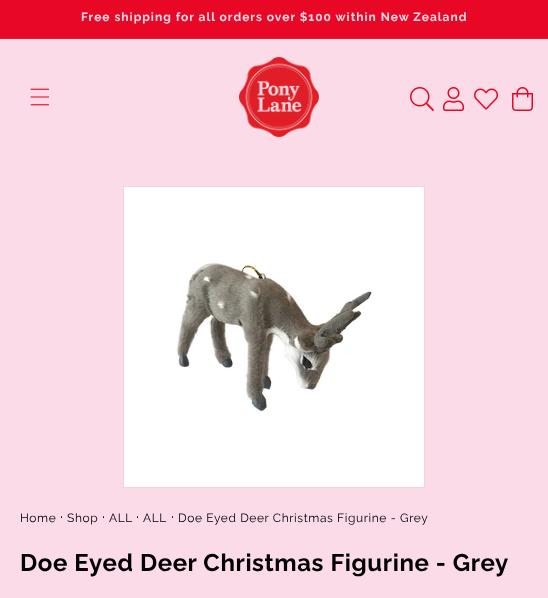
async function draw(canvas) {
  canvas.width = 548;
  canvas.height = 598;
  const ctx = canvas.getContext('2d');
  ctx.miterLimit = 4;
  ctx.fontKerning = 'normal';
  function label(s, x, y, font, color) {
    ctx.font = font;
    ctx.fillStyle = color;
    ctx.fillText(s, x, y);
  }
  function rect(x, y, w, h, color) {
    ctx.fillStyle = color;
    ctx.fillRect(x, y, w, h);
  }
  async function image(src, x, y, w, h) {
    const img = new Image();
    img.src = src;
    await img.decode();
    ctx.drawImage(img, x, y, w, h);
  }

  rect(0, 0, 548, 598, '#fadbe7');
  rect(0, 0, 548, 38, '#e80724');
  rect(0, 38, 548, 1, '#e91834');
  ctx.letterSpacing = '1px';
  label('Free shipping for all orders over $100 within New Zealand', 81, 21, 'bold 12px Raleway', '#fadbe7');
  await image('assets/img1.png', 30, 88, 20, 18);
  await image('assets/img2.png', 239, 57, 80, 80);
  await image('assets/img3.png', 410, 87, 24, 24);
  await image('assets/img4.png', 443, 87, 21, 24);
  await image('assets/img5.png', 474, 88, 24, 22);
  await image('assets/img6.png', 512, 87, 21, 24);
  ctx.strokeStyle = '#f9d0dd';
  ctx.strokeRect(123.5, 186.5, 301, 301);
  await image('assets/img7.png', 124, 187, 300, 300);
  ctx.letterSpacing = '0.6px';
  label('Home', 20, 522, '12px Raleway', '#000');
  label('·', 60, 522, '16px Raleway', '#000');
  label('Shop', 67, 522, '12px Raleway', '#000');
  label('·', 102, 522, '16px Raleway', '#000');
  label('ALL', 109, 522, '12px Raleway', '#000');
  label('·', 136, 522, '16px Raleway', '#000');
  label('ALL', 143, 522, '12px Raleway', '#000');
  label('·', 171, 522, '16px Raleway', '#000');
  label('Doe Eyed Deer Christmas Figurine - Grey', 178, 522, '12px Raleway', '#000');
  label('Doe Eyed Deer Christmas Figurine - Grey', 20, 571, 'bold 24px Raleway', '#000');
}

draw(document.querySelector('canvas'));
